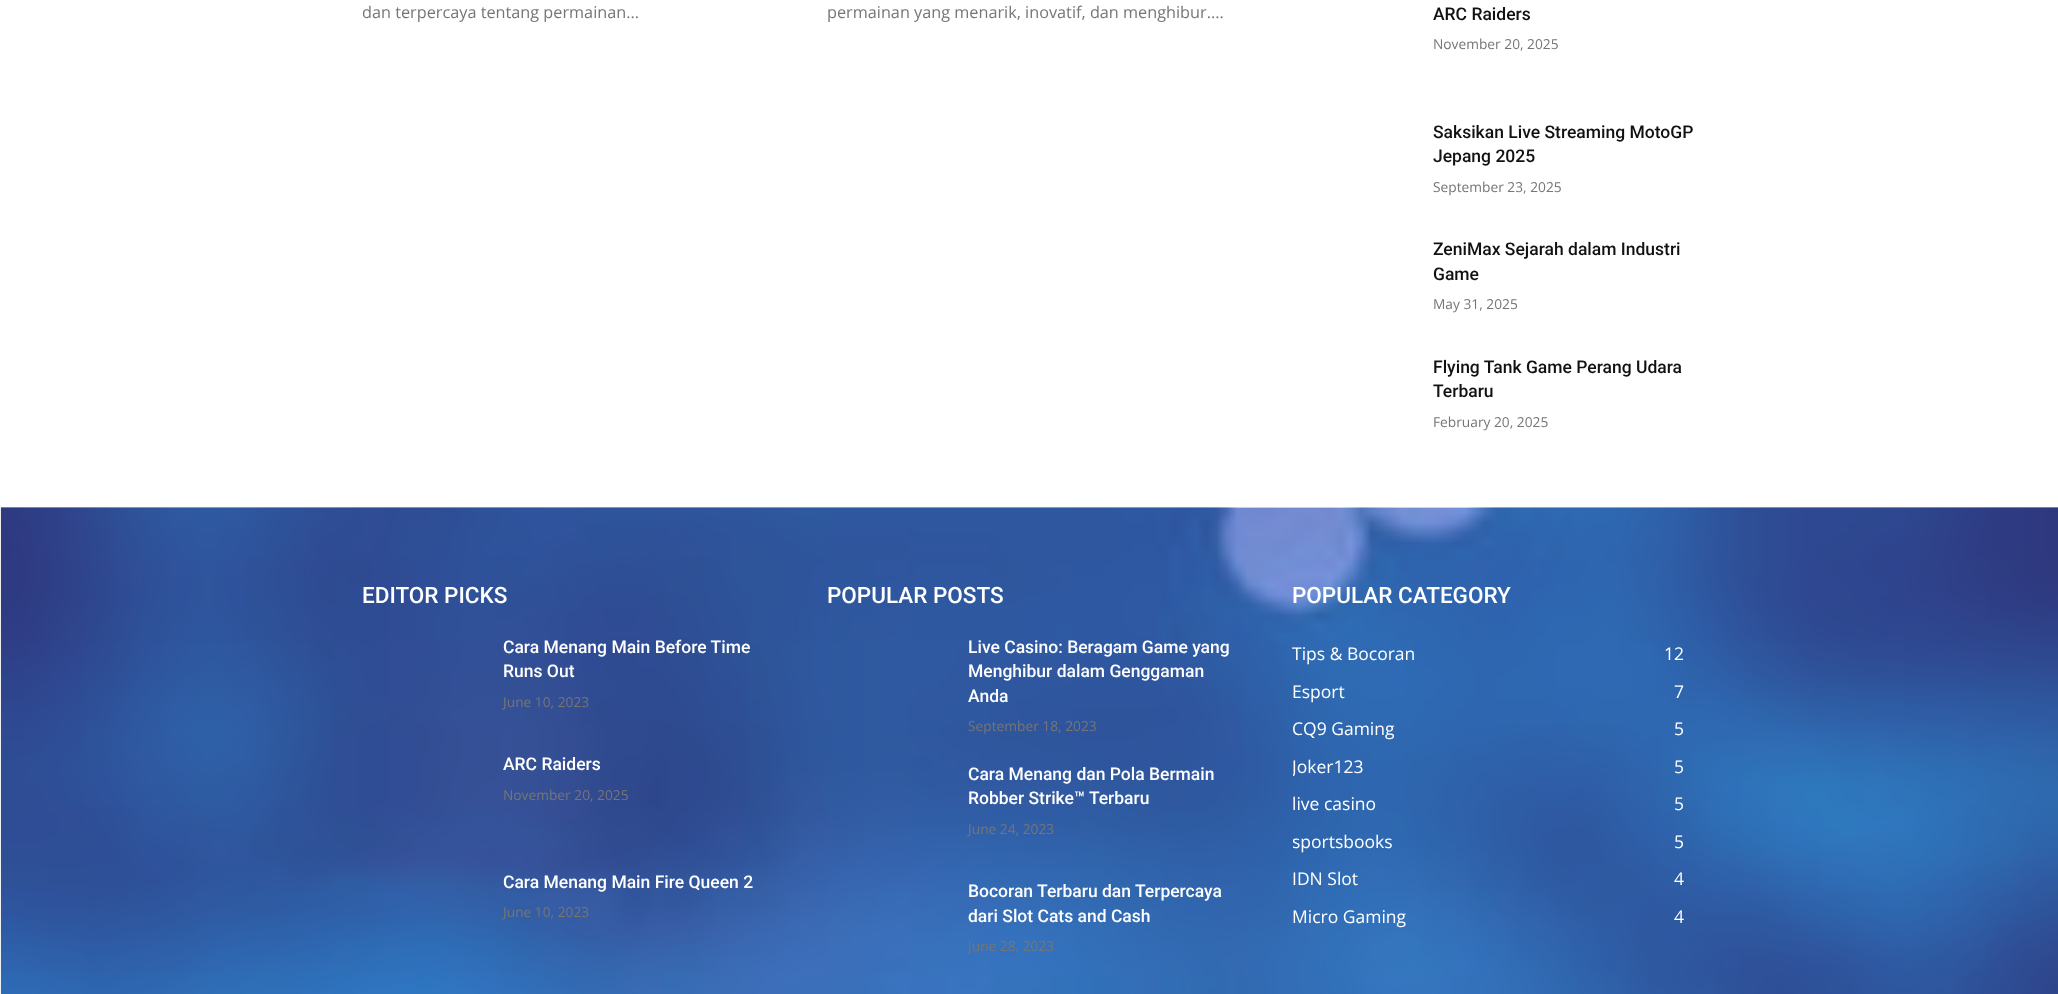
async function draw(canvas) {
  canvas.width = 2058;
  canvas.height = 994;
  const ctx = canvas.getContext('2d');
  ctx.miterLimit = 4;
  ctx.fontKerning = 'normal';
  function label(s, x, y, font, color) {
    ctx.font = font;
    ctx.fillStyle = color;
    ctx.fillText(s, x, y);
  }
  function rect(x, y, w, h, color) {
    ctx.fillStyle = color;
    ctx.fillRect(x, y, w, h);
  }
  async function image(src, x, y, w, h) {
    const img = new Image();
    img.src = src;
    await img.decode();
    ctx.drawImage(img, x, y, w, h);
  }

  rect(0, 0, 2058, 994, '#fff');
  label('dan terpercaya tentang permainan...', 362, 18, '16.25px Open Sans', '#767676');
  label('permainan yang menarik, inovatif, dan menghibur....', 827, 18, '16.25px Open Sans', '#767676');
  label('ARC Raiders', 1433, 20, '500 17.5px Roboto', '#111');
  label('November 20, 2025', 1433, 49, '13.75px Open Sans', '#767676');
  label('Saksikan Live Streaming MotoGP', 1433, 138, '500 17.5px Roboto', '#111');
  label('Jepang 2025', 1433, 162, '500 17.5px Roboto', '#111');
  label('September 23, 2025', 1433, 192, '13.75px Open Sans', '#767676');
  label('ZeniMax Sejarah dalam Industri', 1433, 255, '500 17.5px Roboto', '#111');
  label('Game', 1433, 280, '500 17.5px Roboto', '#111');
  label('May 31, 2025', 1433, 309, '13.75px Open Sans', '#767676');
  label('Flying Tank Game Perang Udara', 1433, 373, '500 17.5px Roboto', '#111');
  label('Terbaru', 1433, 397, '500 17.5px Roboto', '#111');
  label('February 20, 2025', 1433, 427, '13.75px Open Sans', '#767676');
  rect(1, 508, 2057, 486, '#5d69f2');
  await image('assets/img1.png', 0, 507, 2058, 487);
  label('EDITOR PICKS', 362, 603, '500 22.5px Roboto', '#fff');
  label('Cara Menang Main Before Time', 503, 653, '500 17.5px Roboto', '#fff');
  label('Runs Out', 503, 677, '500 17.5px Roboto', '#fff');
  label('June 10, 2023', 503, 707, '13.75px Open Sans', '#767676');
  label('ARC Raiders', 503, 770, '500 17.5px Roboto', '#fff');
  label('November 20, 2025', 503, 800, '13.75px Open Sans', '#767676');
  label('Cara Menang Main Fire Queen 2', 503, 888, '500 17.5px Roboto', '#fff');
  label('June 10, 2023', 503, 917, '13.75px Open Sans', '#767676');
  label('POPULAR POSTS', 827, 603, '500 22.5px Roboto', '#fff');
  label('Live Casino: Beragam Game yang', 968, 653, '500 17.5px Roboto', '#fff');
  label('Menghibur dalam Genggaman', 968, 677, '500 17.5px Roboto', '#fff');
  label('Anda', 968, 702, '500 17.5px Roboto', '#fff');
  label('September 18, 2023', 968, 731, '13.75px Open Sans', '#767676');
  label('Cara Menang dan Pola Bermain', 968, 780, '500 17.5px Roboto', '#fff');
  label('Robber Strike™ Terbaru', 968, 804, '500 17.5px Roboto', '#fff');
  label('June 24, 2023', 968, 834, '13.75px Open Sans', '#767676');
  label('Bocoran Terbaru dan Terpercaya', 968, 897, '500 17.5px Roboto', '#fff');
  label('dari Slot Cats and Cash', 968, 922, '500 17.5px Roboto', '#fff');
  label('June 28, 2023', 968, 951, '13.75px Open Sans', '#767676');
  label('POPULAR CATEGORY', 1292, 603, '500 22.5px Roboto', '#fff');
  label('Tips & Bocoran', 1292, 660, '17.5px Open Sans', '#fff');
  label('12', 1664, 660, '17.5px Open Sans', '#fff');
  label('Esport', 1292, 698, '17.5px Open Sans', '#fff');
  label('7', 1674, 698, '17.5px Open Sans', '#fff');
  label('CQ9 Gaming', 1292, 735, '17.5px Open Sans', '#fff');
  label('5', 1674, 735, '17.5px Open Sans', '#fff');
  ctx.save();
  ctx.beginPath();
  ctx.rect(1293, 575, 405, 378);
  ctx.clip();
  label('Joker123', 1292, 773, '17.5px Open Sans', '#fff');
  ctx.restore();
  label('5', 1674, 773, '17.5px Open Sans', '#fff');
  label('live casino', 1292, 810, '17.5px Open Sans', '#fff');
  label('5', 1674, 810, '17.5px Open Sans', '#fff');
  ctx.save();
  ctx.beginPath();
  ctx.rect(1293, 575, 405, 378);
  ctx.clip();
  label('sportsbooks', 1292, 848, '17.5px Open Sans', '#fff');
  ctx.restore();
  label('5', 1674, 848, '17.5px Open Sans', '#fff');
  label('IDN Slot', 1292, 885, '17.5px Open Sans', '#fff');
  label('4', 1674, 885, '17.5px Open Sans', '#fff');
  label('Micro Gaming', 1292, 923, '17.5px Open Sans', '#fff');
  label('4', 1674, 923, '17.5px Open Sans', '#fff');
}

draw(document.querySelector('canvas'));
